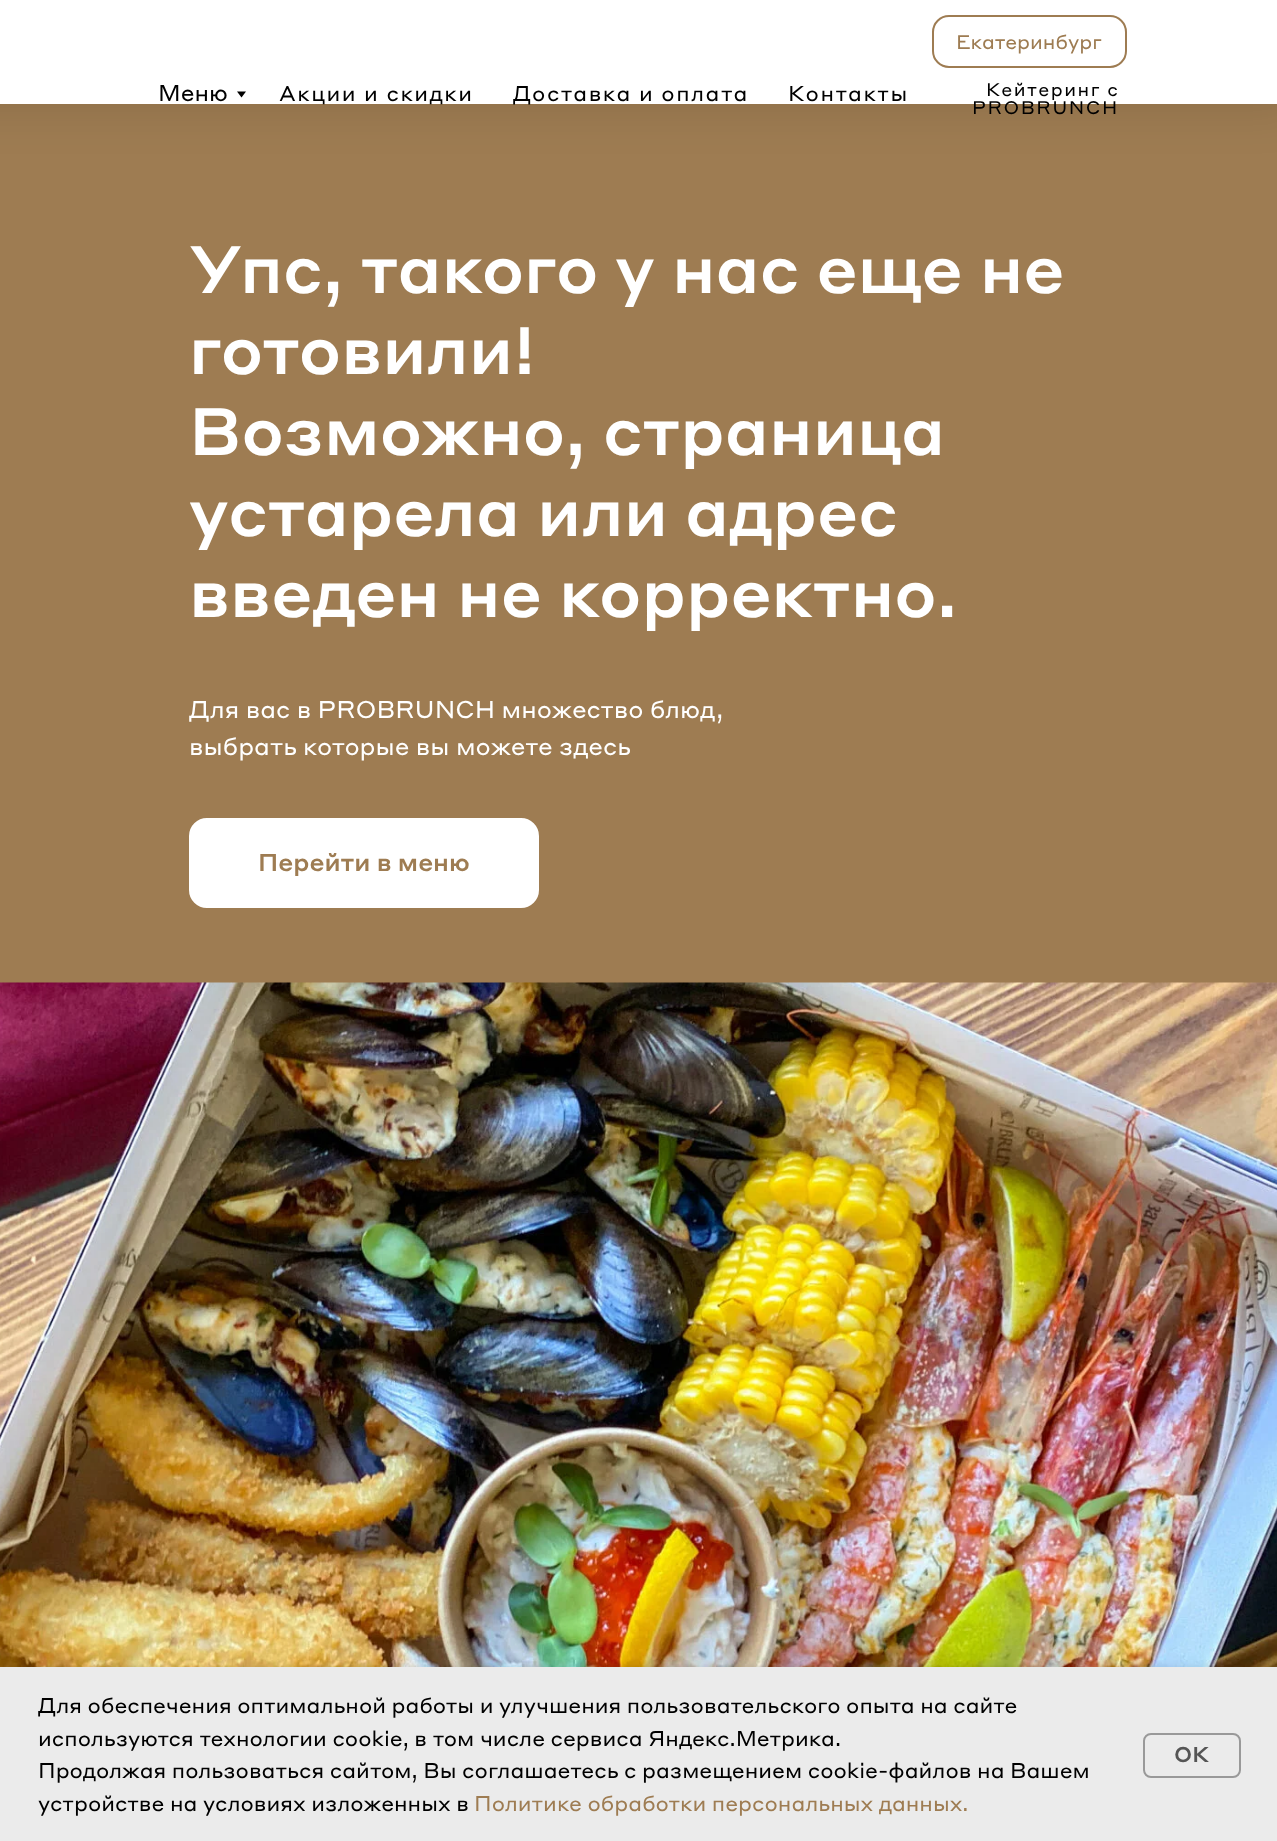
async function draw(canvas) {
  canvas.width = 1277;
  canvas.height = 1841;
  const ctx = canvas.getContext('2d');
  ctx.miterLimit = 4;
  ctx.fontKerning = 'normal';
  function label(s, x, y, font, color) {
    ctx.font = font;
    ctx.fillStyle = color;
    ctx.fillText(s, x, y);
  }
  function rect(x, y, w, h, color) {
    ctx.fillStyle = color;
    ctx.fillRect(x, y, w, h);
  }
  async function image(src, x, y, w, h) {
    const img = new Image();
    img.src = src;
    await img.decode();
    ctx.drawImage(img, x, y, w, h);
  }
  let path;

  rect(0, 0, 1277, 1841, '#9e7c52');
  ctx.fillStyle = '#0000001a';
  ctx.filter = 'blur(22.5px)';
  ctx.beginPath();
  ctx.rect(-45, 8, 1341, 103);
  ctx.fill();
  ctx.filter = 'none';
  rect(0, 0, 1277, 104, '#fff');
  ctx.beginPath();
  ctx.roundRect(933, 16, 193, 51, 16);
  ctx.strokeStyle = '#9e7c52';
  ctx.lineWidth = 2;
  ctx.stroke();
  label('Екатеринбург', 956, 49, '19.5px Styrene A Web', '#9e7c52');
  label('Меню', 158, 101, '22.5px Styrene A Web', '#000');
  path = new Path2D('M237 91.5H246L241.5 97.5Z');
  ctx.fill(path);
  ctx.letterSpacing = '1.5px';
  label('Акции и скидки', 279, 101, '21px Styrene A Web', '#000');
  label('Доставка и оплата', 513, 101, '21px Styrene A Web', '#000');
  label('Контакты', 788, 101, '21px Styrene A Web', '#000');
  label('Кейтеринг с', 986, 96, '18px Styrene A Web', '#000');
  label('PROBRUNCH', 972, 114, '18px Styrene A Web', '#000');
  ctx.letterSpacing = '0px';
  label('Упс, такого у нас еще не', 189, 293, '500 66px Styrene A Web', '#fff');
  label('готовили!', 189, 374, '500 66px Styrene A Web', '#fff');
  label('Возможно, страница', 189, 455, '500 66px Styrene A Web', '#fff');
  label('устарела или адрес', 189, 536, '500 66px Styrene A Web', '#fff');
  label('введен не корректно.', 189, 617, '500 66px Styrene A Web', '#fff');
  label('Для вас в PROBRUNCH множество блюд,', 189, 718, '24px Styrene A Web', '#fff');
  label('выбрать которые вы можете здесь', 189, 755, '24px Styrene A Web', '#fff');
  ctx.beginPath();
  ctx.roundRect(190, 819, 348, 88, 17);
  ctx.fill();
  ctx.strokeStyle = '#fff';
  ctx.stroke();
  label('Перейти в меню', 258, 871, '500 24px Styrene A Web', '#9e7c52');
  await image('assets/img1.png', 0, 982, 1277, 685);
  ctx.fillStyle = '#0000001a';
  ctx.filter = 'blur(4px)';
  ctx.beginPath();
  ctx.rect(0, 1667, 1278, 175);
  ctx.fill();
  ctx.filter = 'none';
  rect(0, 1667, 1277, 174, '#ebebeb');
  label('Для обеспечения оптимальной работы и улучшения пользовательского опыта на сайте', 38, 1713, '21px Styrene A Web', '#000');
  label('используются технологии cookie, в том числе сервиса Яндекс.Метрика.', 38, 1746, '21px Styrene A Web', '#000');
  label('Продолжая пользоваться сайтом, Вы соглашаетесь с размещением cookie-файлов на Вашем', 38, 1778, '21px Styrene A Web', '#000');
  label('устройстве на условиях изложенных в', 38, 1811, '21px Styrene A Web', '#000');
  label('Политике обработки персональных данных.', 474, 1811, '21px Styrene A Web', '#9e7c52');
  ctx.beginPath();
  ctx.roundRect(1144, 1734, 96, 43, 7);
  ctx.strokeStyle = '#999';
  ctx.stroke();
  label('OK', 1174, 1762, '500 21px Styrene A Web', '#555');
}

draw(document.querySelector('canvas'));
